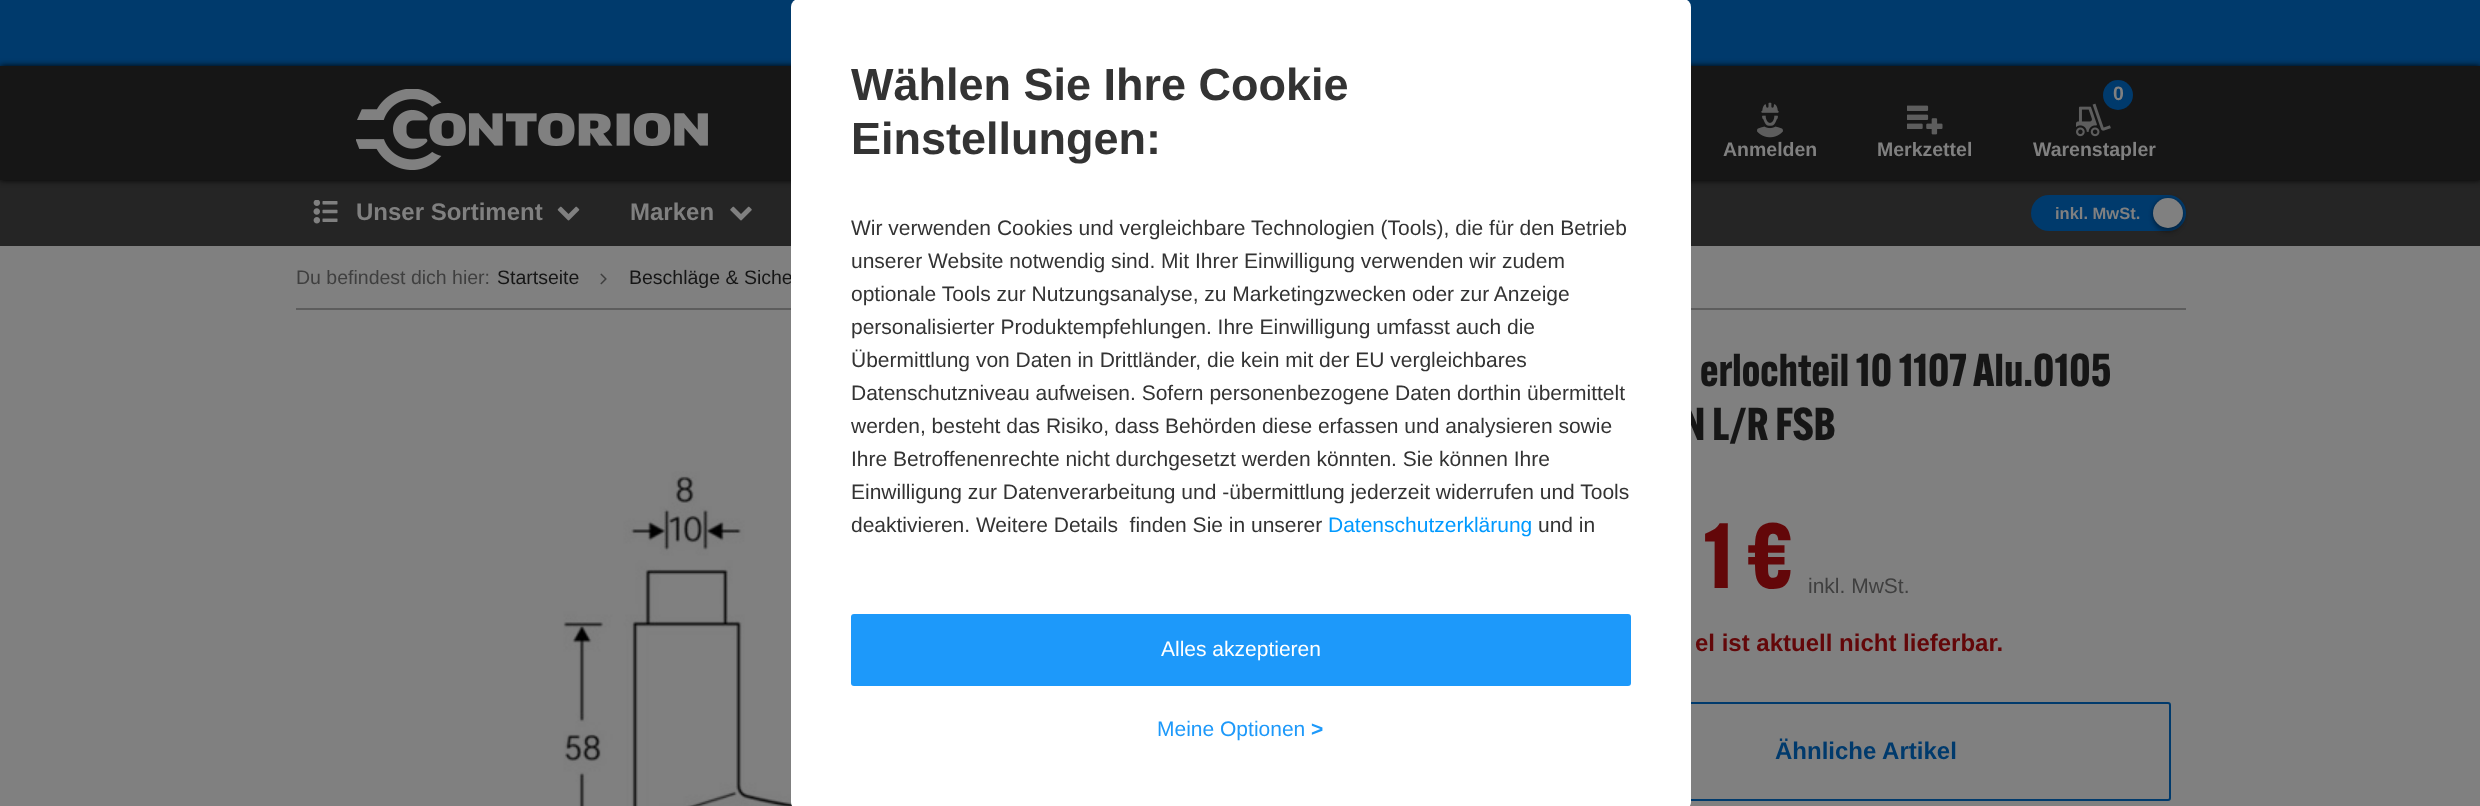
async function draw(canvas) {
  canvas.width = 2480;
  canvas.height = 806;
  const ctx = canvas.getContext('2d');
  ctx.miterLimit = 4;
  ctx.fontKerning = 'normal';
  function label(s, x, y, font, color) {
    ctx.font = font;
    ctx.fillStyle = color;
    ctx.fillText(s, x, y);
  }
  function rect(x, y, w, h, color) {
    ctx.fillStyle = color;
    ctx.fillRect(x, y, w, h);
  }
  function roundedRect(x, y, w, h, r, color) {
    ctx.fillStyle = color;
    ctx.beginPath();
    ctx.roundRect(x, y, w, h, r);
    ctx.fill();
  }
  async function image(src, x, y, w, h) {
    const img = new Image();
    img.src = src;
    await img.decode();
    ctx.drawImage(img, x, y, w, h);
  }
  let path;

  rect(0, 0, 2480, 806, '#808080');
  rect(0, 0, 2480, 66, '#003a6c');
  rect(0, 66, 2480, 114, '#161616');
  rect(0, 180, 2480, 66, '#252525');
  ctx.save();
  path = new Path2D('M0 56H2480V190H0ZM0 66H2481V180H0Z');
  ctx.clip(path, 'evenodd');
  ctx.fillStyle = '#000';
  ctx.filter = 'blur(3px)';
  ctx.beginPath();
  ctx.rect(0, 66, 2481, 114);
  ctx.fill();
  ctx.filter = 'none';
  ctx.restore();
  rect(296, 308, 1890, 2, '#5d5d5d');
  label('Beschläge & Siche', 629, 284, '19.5px Liberation Sans', '#161616');
  await image('assets/img9.png', 563, 471, 230, 335);
  label('N L/R FSB', 1681, 440, 'bold 45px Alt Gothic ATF', '#161616');
  ctx.beginPath();
  ctx.roundRect(1563, 703, 607, 97, 2);
  ctx.strokeStyle = '#003a6c';
  ctx.lineWidth = 2;
  ctx.stroke();
  roundedRect(791, -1, 900, 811, 8, '#fff');
  label('Wählen Sie Ihre Cookie', 851, 100, 'bold 45px Liberation Sans', '#333');
  label('Einstellungen:', 851, 154, 'bold 45px Liberation Sans', '#333');
  label('Wir verwenden Cookies und vergleichbare Technologien (Tools), die für den Betrieb', 851, 235, '21px Liberation Sans', '#333');
  label('unserer Website notwendig sind. Mit Ihrer Einwilligung verwenden wir zudem', 851, 268, '21px Liberation Sans', '#333');
  label('optionale Tools zur Nutzungsanalyse, zu Marketingzwecken oder zur Anzeige', 851, 301, '21px Liberation Sans', '#333');
  label('personalisierter Produktempfehlungen. Ihre Einwilligung umfasst auch die', 851, 334, '21px Liberation Sans', '#333');
  label('Übermittlung von Daten in Drittländer, die kein mit der EU vergleichbares', 851, 367, '21px Liberation Sans', '#333');
  label('Datenschutzniveau aufweisen. Sofern personenbezogene Daten dorthin übermittelt', 851, 400, '21px Liberation Sans', '#333');
  label('werden, besteht das Risiko, dass Behörden diese erfassen und analysieren sowie', 851, 433, '21px Liberation Sans', '#333');
  label('Ihre Betroffenenrechte nicht durchgesetzt werden könnten. Sie können Ihre', 851, 466, '21px Liberation Sans', '#333');
  label('Einwilligung zur Datenverarbeitung und -übermittlung jederzeit widerrufen und Tools', 851, 499, '21px Liberation Sans', '#333');
  label('deaktivieren. Weitere Details  finden Sie in unserer', 851, 532, '21px Liberation Sans', '#333');
  label('Datenschutzerklärung', 1328, 532, '21px Liberation Sans', '#09f');
  label('und in', 1538, 532, '21px Liberation Sans', '#333');
  roundedRect(851, 614, 780, 72, 3, '#1d99fa');
  label('Alles akzeptieren', 1161, 656, '21px Liberation Sans', '#fff');
  label('Meine Optionen', 1157, 736, '21px Liberation Sans', '#1d99fa');
  label('>', 1311, 736, 'bold 21px Liberation Sans', '#1d99fa');
  await image('assets/img1.png', 356, 89, 352, 81);
  await image('assets/img2.png', 1757, 102, 26, 36);
  label('Anmelden', 1723, 156, 'bold 19.5px Liberation Sans', '#808080');
  await image('assets/img3.png', 1907, 105, 36, 30);
  label('Merkzettel', 1877, 156, 'bold 19.5px Liberation Sans', '#808080');
  await image('assets/img4.png', 2076, 103, 35, 34);
  ctx.fillStyle = '#003a6c';
  ctx.beginPath();
  ctx.arc(2118, 95, 15, 0, 2 * Math.PI);
  ctx.fill();
  label('0', 2113, 100, 'bold 19.5px Liberation Sans', '#808080');
  label('Warenstapler', 2033, 156, 'bold 19.5px Liberation Sans', '#808080');
  await image('assets/img5.png', 313, 200, 25, 24);
  label('Unser Sortiment', 356, 220, 'bold 24px Liberation Sans', '#808080');
  await image('assets/img6.png', 557, 206, 23, 15);
  label('Marken', 630, 220, 'bold 24px Liberation Sans', '#808080');
  await image('assets/img7.png', 730, 206, 22, 15);
  roundedRect(2031, 195, 155, 36, 18, '#003a6c');
  label('inkl. MwSt.', 2055, 219, 'bold 16.5px Liberation Sans', '#808080');
  ctx.fillStyle = '#00000057';
  ctx.filter = 'blur(2px)';
  ctx.beginPath();
  ctx.roundRect(2153, 198, 30, 30, 15);
  ctx.fill();
  ctx.filter = 'none';
  ctx.fillStyle = '#00000038';
  ctx.filter = 'blur(2px)';
  ctx.beginPath();
  ctx.roundRect(2153, 203, 30, 30, 15);
  ctx.fill();
  ctx.filter = 'none';
  ctx.fillStyle = '#808080';
  ctx.beginPath();
  ctx.arc(2168, 213, 15, 0, 2 * Math.PI);
  ctx.fill();
  label('Du befindest dich hier:', 296, 284, '19.5px Liberation Sans', '#3f3f3f');
  label('Startseite', 497, 284, '19.5px Liberation Sans', '#161616');
  await image('assets/img8.png', 600, 273, 7, 12);
  label('erlochteil 10 1107 Alu.0105', 1700, 386, 'bold 45px Alt Gothic ATF', '#161616');
  label('1 €', 1704, 588, 'bold 90px Alt Gothic ATF', '#630709');
  label('inkl. MwSt.', 1808, 593, '21px Liberation Sans', '#3f3f3f');
  label('el ist aktuell nicht lieferbar.', 1695, 651, 'bold 24px Liberation Sans', '#630709');
  label('Ähnliche Artikel', 1775, 759, 'bold 24px Liberation Sans', '#003a6c');
}

draw(document.querySelector('canvas'));
